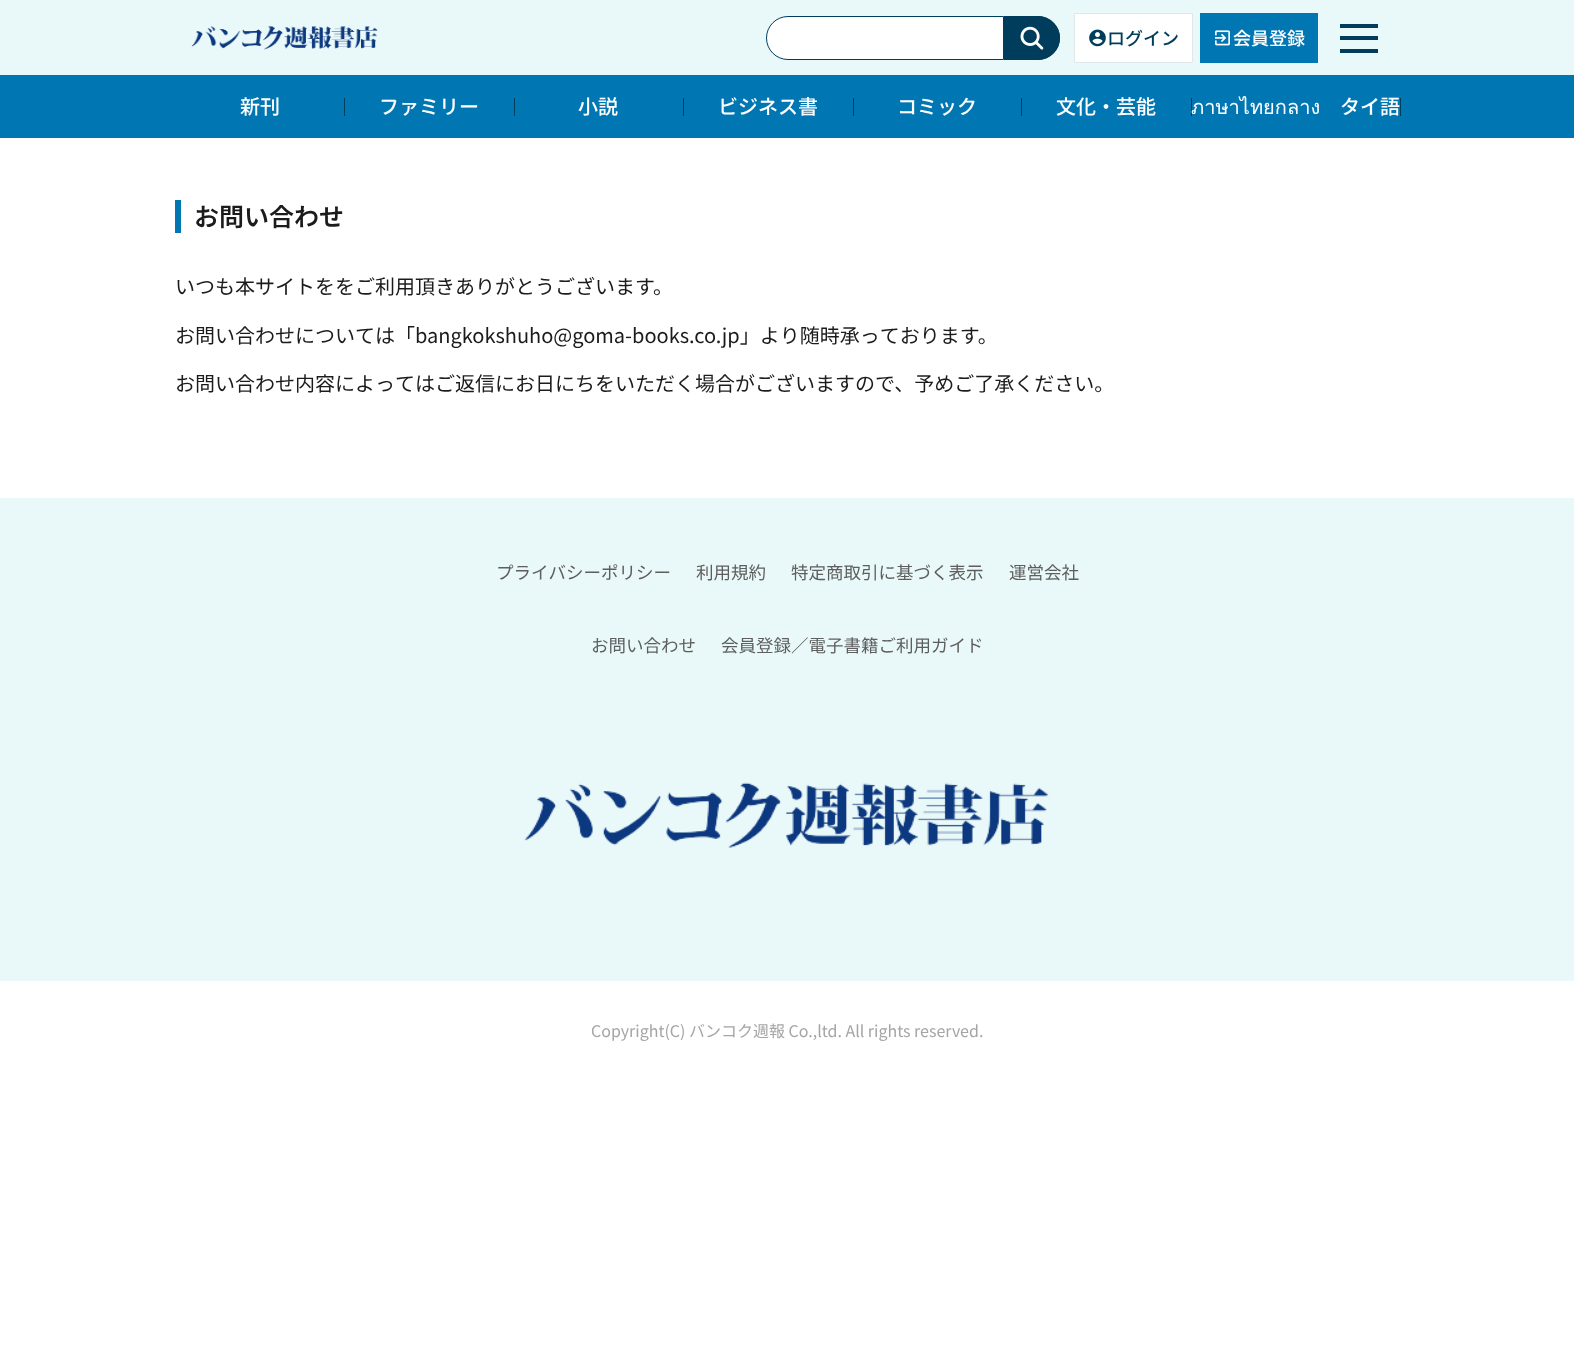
async function draw(canvas) {
  canvas.width = 1574;
  canvas.height = 1355;
  const ctx = canvas.getContext('2d');
  ctx.miterLimit = 4;
  ctx.fontKerning = 'normal';
  function label(s, x, y, font, color) {
    ctx.font = font;
    ctx.fillStyle = color;
    ctx.fillText(s, x, y);
  }
  function rect(x, y, w, h, color) {
    ctx.fillStyle = color;
    ctx.fillRect(x, y, w, h);
  }
  async function image(src, x, y, w, h) {
    const img = new Image();
    img.src = src;
    await img.decode();
    ctx.drawImage(img, x, y, w, h);
  }

  rect(0, 0, 1574, 1355, '#fff');
  rect(0, 0, 1574, 75, '#e9f8f8');
  await image('assets/img1.png', 191, 25, 187, 25);
  ctx.fillStyle = '#fff';
  ctx.beginPath();
  ctx.roundRect(766.5, 16.5, 237, 43, [21.5, 0, 0, 21.5]);
  ctx.fill();
  ctx.strokeStyle = '#003d5c';
  ctx.stroke();
  ctx.fillStyle = '#003d5c';
  ctx.beginPath();
  ctx.roundRect(1004, 16, 56, 44, [0, 22, 22, 0]);
  ctx.fill();
  await image('assets/img2.png', 1020, 26, 24, 24);
  ctx.beginPath();
  ctx.roundRect(1004.5, 16.5, 55, 43, [0, 21.5, 21.5, 0]);
  ctx.stroke();
  ctx.fillStyle = '#fff';
  ctx.beginPath();
  ctx.rect(1074.5, 13.5, 118, 49);
  ctx.fill();
  ctx.strokeStyle = '#e0e7eb';
  ctx.stroke();
  await image('assets/img3.png', 1089, 29, 17, 18);
  label('ログイン', 1107, 45, '500 18px Noto Sans JP', '#003d5c');
  rect(1200, 13, 118, 50, '#0077b3');
  await image('assets/img4.png', 1215, 30, 15, 16);
  label('会員登録', 1233, 45, '500 18px Noto Sans JP', '#fff');
  rect(1340, 24, 38, 4, '#003d5c');
  rect(1340, 36, 38, 4, '#003d5c');
  rect(1340, 49, 38, 4, '#003d5c');
  rect(0, 75, 1574, 63, '#0077b3');
  label('新刊', 240, 114, '500 20px Noto Sans JP', '#fff');
  rect(344, 98, 1, 18, '#003d5c');
  label('ファミリー', 379, 114, '500 20px Noto Sans JP', '#fff');
  rect(514, 98, 1, 18, '#003d5c');
  label('小説', 578, 114, '500 20px Noto Sans JP', '#fff');
  rect(683, 98, 1, 18, '#003d5c');
  label('ビジネス書', 718, 114, '500 20px Noto Sans JP', '#fff');
  rect(853, 98, 1, 18, '#003d5c');
  label('コミック', 897, 114, '500 20px Noto Sans JP', '#fff');
  rect(1021, 98, 1, 18, '#003d5c');
  label('文化・芸能', 1056, 114, '500 20px Noto Sans JP', '#fff');
  rect(1191, 98, 1, 18, '#003d5c');
  label('ภาษาไทยกลาง', 1191, 114, '20px Loma', '#fff');
  label('タイ語', 1340, 114, '500 20px Noto Sans JP', '#fff');
  rect(1400, 98, 1, 18, '#003d5c');
  rect(175, 200, 6, 33, '#0077b3');
  label('お問い合わせ', 194, 226, '600 25px Noto Sans JP', '#1c1b1b');
  label('いつも本サイトををご利用頂きありがとうございます。', 175, 294, '20px Noto Sans JP', '#1c1b1b');
  label('お問い合わせについては「bangkokshuho@goma-books.co.jp」より随時承っております。', 175, 343, '20px Noto Sans JP', '#1c1b1b');
  label('お問い合わせ内容によってはご返信にお日にちをいただく場合がございますので、予めご了承ください。', 175, 391, '20px Noto Sans JP', '#1c1b1b');
  rect(0, 498, 1574, 483, '#e9f8f8');
  label('プライバシーポリシー', 496, 579, '17.5px Noto Sans JP', '#5e5e5e');
  label('利用規約', 696, 579, '17.5px Noto Sans JP', '#5e5e5e');
  label('特定商取引に基づく表示', 791, 579, '17.5px Noto Sans JP', '#5e5e5e');
  label('運営会社', 1009, 579, '17.5px Noto Sans JP', '#5e5e5e');
  label('お問い合わせ', 591, 652, '17.5px Noto Sans JP', '#5e5e5e');
  label('会員登録／電子書籍ご利用ガイド', 721, 652, '17.5px Noto Sans JP', '#5e5e5e');
  await image('assets/img5.png', 524, 782, 525, 66);
  label('Copyright(C) バンコク週報 Co.,ltd. All rights reserved.', 591, 1037, '16px Noto Sans JP', '#a5a5a5');
}

draw(document.querySelector('canvas'));
